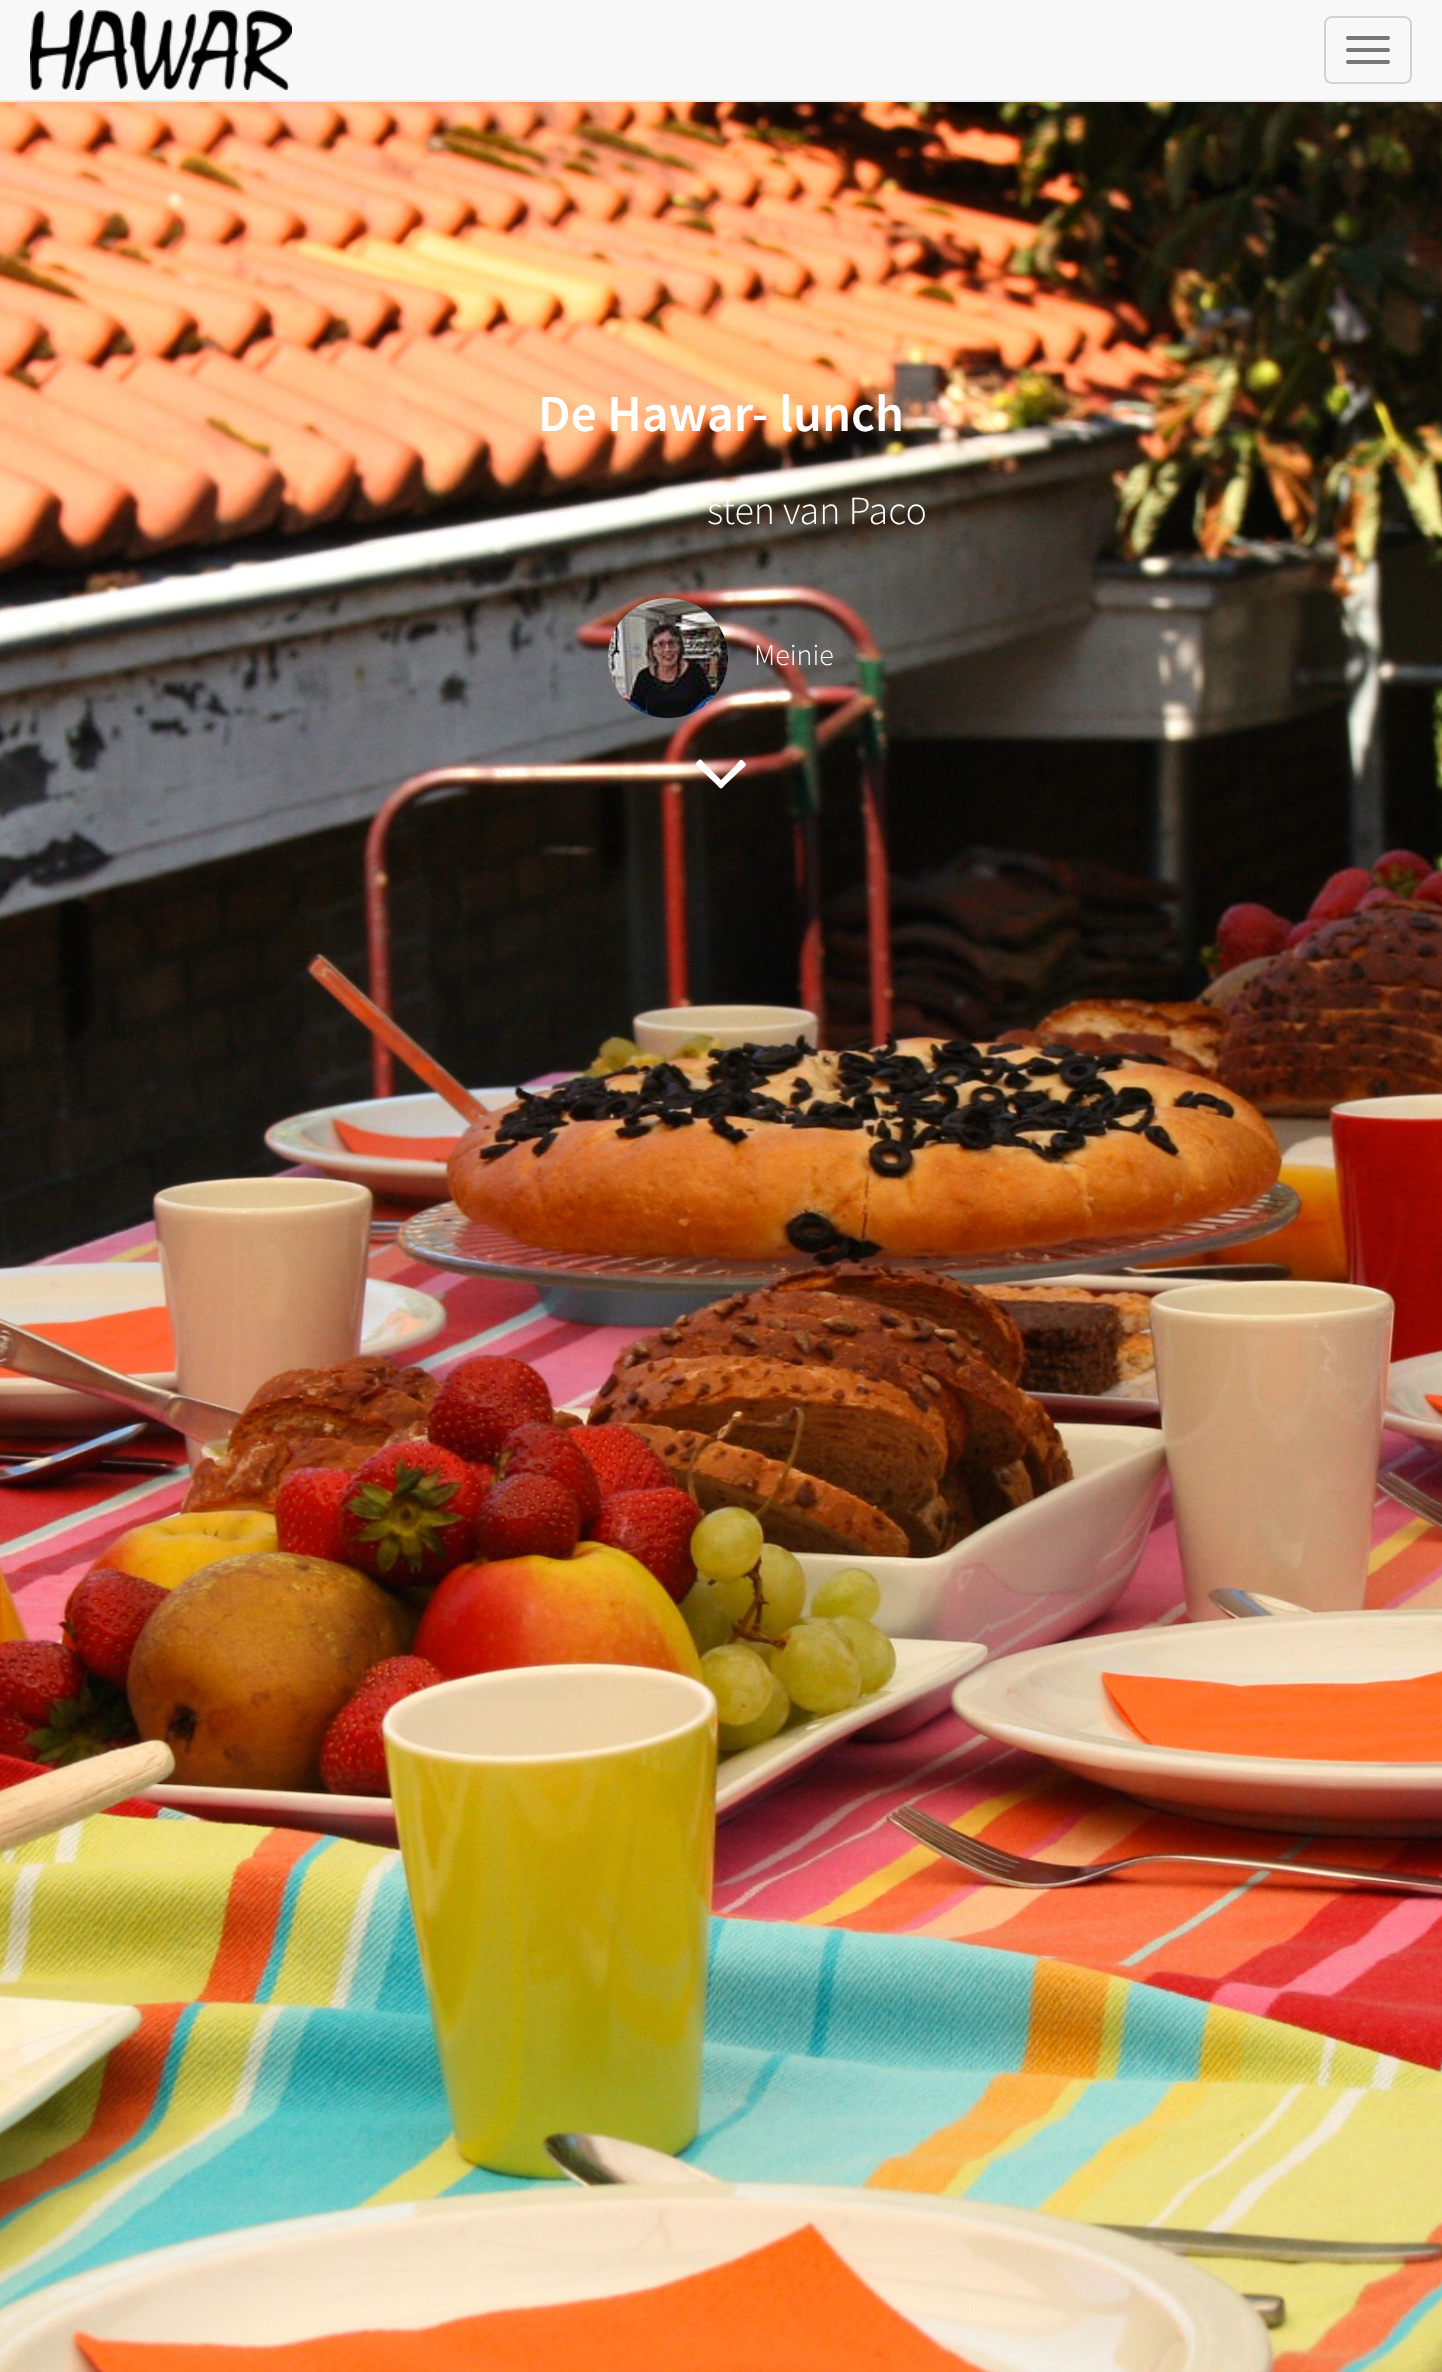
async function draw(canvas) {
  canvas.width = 1442;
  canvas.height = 2372;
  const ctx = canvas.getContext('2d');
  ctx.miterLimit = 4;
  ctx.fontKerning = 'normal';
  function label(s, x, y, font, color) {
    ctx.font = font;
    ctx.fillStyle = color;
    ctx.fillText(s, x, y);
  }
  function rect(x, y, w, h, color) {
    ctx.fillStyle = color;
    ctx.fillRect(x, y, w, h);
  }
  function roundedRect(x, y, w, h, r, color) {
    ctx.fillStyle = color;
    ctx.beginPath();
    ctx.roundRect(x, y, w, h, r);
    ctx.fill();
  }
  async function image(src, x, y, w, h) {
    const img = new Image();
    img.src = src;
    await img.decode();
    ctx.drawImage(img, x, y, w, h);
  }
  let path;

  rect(0, 0, 1442, 2372, '#fff');
  rect(0, 0, 1442, 100, '#f8f8f8');
  rect(0, 100, 1442, 2, '#e7e7e7');
  await image('assets/img1.png', 30, 10, 262, 80);
  ctx.beginPath();
  ctx.roundRect(1325, 17, 86, 66, 7);
  ctx.strokeStyle = '#d2d2d2';
  ctx.lineWidth = 2;
  ctx.stroke();
  roundedRect(1346, 36, 44, 4, 2, '#777');
  roundedRect(1346, 48, 44, 4, 2, '#777');
  roundedRect(1346, 60, 44, 4, 2, '#777');
  await image('assets/img2.png', 0, 102, 1442, 2270);
  label('De Hawar- lunch', 538, 431, '600 52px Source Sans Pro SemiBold', '#fff');
  label('sten van Paco', 707, 524, '300 40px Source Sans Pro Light', '#fff');
  await image('assets/img3.png', 608, 598, 120, 120);
  label('Meinie', 754, 665, '300 30px Source Sans Pro Light', '#fff');
  path = new Path2D('M745 763C748 765 742 769 742 769L726 784C720 790 722 790 716 784L696 765C695 764 697 762 698 761C701 758 701 760 704 763L721 780L734 767C741 760 740 757 745 763Z');
  ctx.fill(path);
}

draw(document.querySelector('canvas'));
